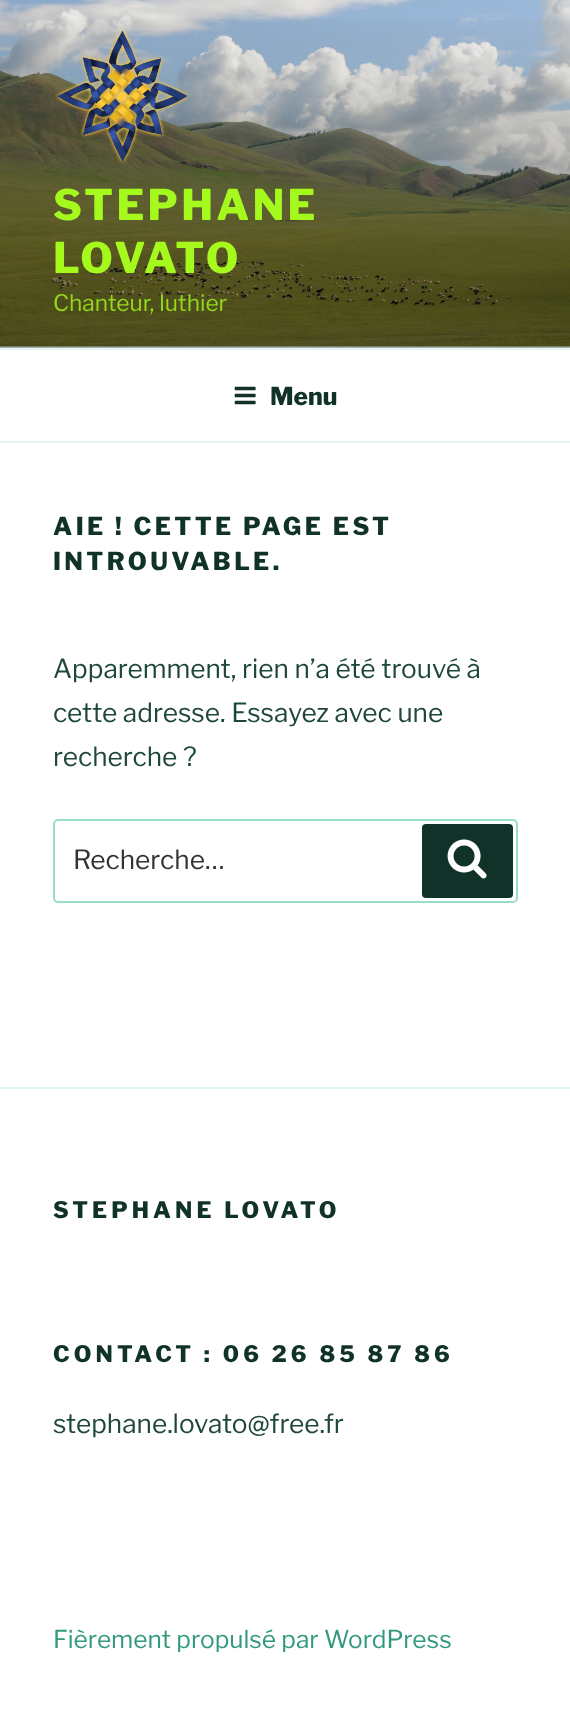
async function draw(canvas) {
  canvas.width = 570;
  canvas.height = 1728;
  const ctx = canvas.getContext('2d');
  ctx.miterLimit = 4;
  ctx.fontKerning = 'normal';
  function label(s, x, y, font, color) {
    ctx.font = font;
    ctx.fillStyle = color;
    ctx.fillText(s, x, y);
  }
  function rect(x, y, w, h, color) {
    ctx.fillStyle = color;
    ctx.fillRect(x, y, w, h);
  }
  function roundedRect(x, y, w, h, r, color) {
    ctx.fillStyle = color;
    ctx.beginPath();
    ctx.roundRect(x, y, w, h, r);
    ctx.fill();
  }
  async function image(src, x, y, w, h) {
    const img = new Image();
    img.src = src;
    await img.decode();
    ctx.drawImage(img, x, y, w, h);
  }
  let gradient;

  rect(0, 0, 570, 1728, '#fff');
  rect(0, 346, 570, 2, '#f7fcfb');
  await image('assets/img1.png', 0, 0, 570, 347);
  gradient = ctx.createLinearGradient(285, 0, 285, 348);
  gradient.addColorStop(0, '#00000000');
  gradient.addColorStop(0.75, '#0000004d');
  gradient.addColorStop(1, '#0000004d');
  ctx.fillStyle = gradient;
  ctx.fillRect(0, 19, 570, 329);
  await image('assets/img2.png', 55, 28, 135, 136);
  ctx.letterSpacing = '3.25px';
  label('STEPHANE', 53, 220, '100 42px Libre Franklin', '#a5f91d');
  label('LOVATO', 53, 273, '100 42px Libre Franklin', '#a5f91d');
  ctx.letterSpacing = '0px';
  label('Chanteur, luthier', 53, 311, '100 22.75px "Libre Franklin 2"', '#94d71d');
  rect(0, 348, 570, 2, '#e4f6f1');
  rect(0, 441, 570, 2, '#e4f6f1');
  await image('assets/img3.png', 234, 386, 22, 19);
  label('Menu', 270, 405, '100 24.5px Libre Franklin', '#113229');
  ctx.letterSpacing = '3.4px';
  label('AIE ! CETTE PAGE EST', 53, 535, '100 24.5px Libre Franklin', '#113229');
  label('INTROUVABLE.', 53, 570, '100 24.5px Libre Franklin', '#113229');
  ctx.letterSpacing = '0px';
  label('Apparemment, rien n’a été trouvé à', 53, 678, '100 26.25px "Libre Franklin 2"', '#1f473d');
  label('cette adresse. Essayez avec une', 53, 722, '100 26.25px "Libre Franklin 2"', '#1f473d');
  label('recherche ?', 53, 766, '100 26.25px "Libre Franklin 2"', '#1f473d');
  ctx.beginPath();
  ctx.roundRect(54, 820, 463, 82, 4);
  ctx.strokeStyle = '#98ddca';
  ctx.lineWidth = 2;
  ctx.stroke();
  label('Recherche…', 73, 869, '100 26.25px "Libre Franklin 2"', '#333');
  roundedRect(422, 824, 91, 74, 4, '#113229');
  await image('assets/img4.png', 447, 839, 40, 40);
  rect(0, 1087, 570, 2, '#e4f6f1');
  ctx.letterSpacing = '4.1px';
  label('STEPHANE LOVATO', 53, 1218, '100 22.75px Libre Franklin', '#113229');
  label('CONTACT : 06 26 85 87 86', 53, 1362, '100 22.75px Libre Franklin', '#113229');
  ctx.letterSpacing = '0px';
  label('stephane.lovato@free.fr', 53, 1433, '100 26.25px "Libre Franklin 2"', '#1f473d');
  label('Fièrement propulsé par WordPress', 53, 1648, '100 24.5px "Libre Franklin 2"', '#33997e');
}

draw(document.querySelector('canvas'));
